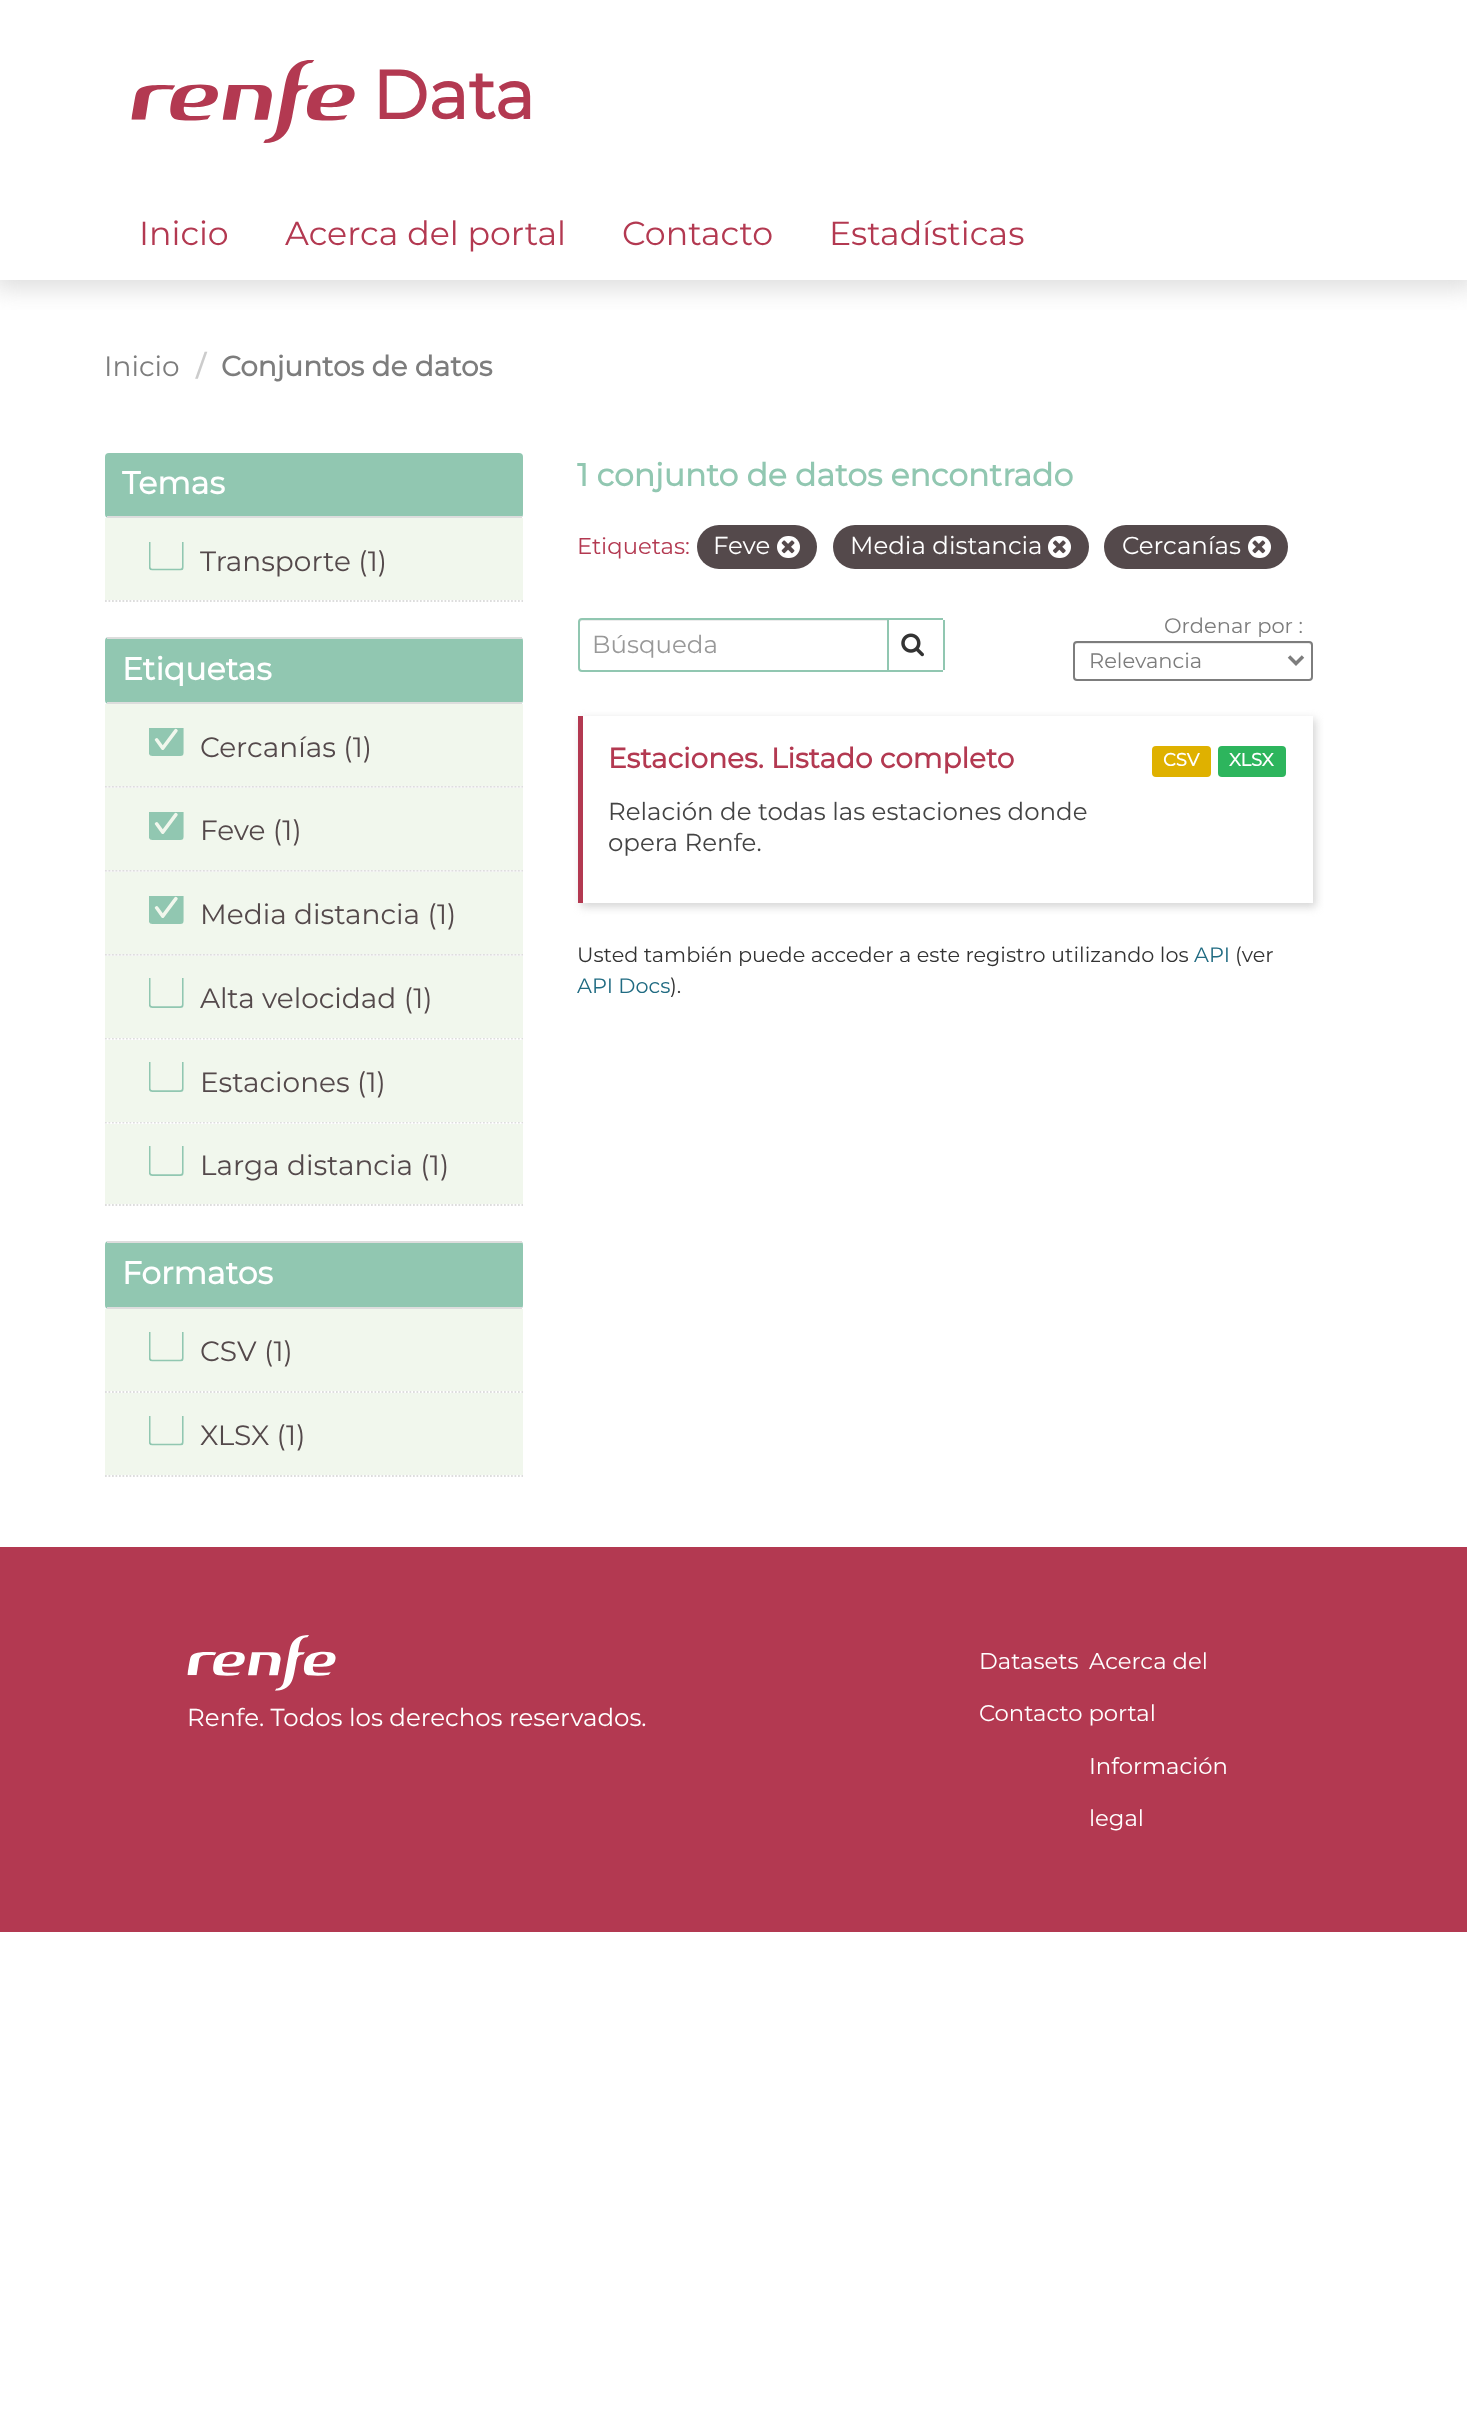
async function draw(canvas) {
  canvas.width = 1467;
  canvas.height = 2417;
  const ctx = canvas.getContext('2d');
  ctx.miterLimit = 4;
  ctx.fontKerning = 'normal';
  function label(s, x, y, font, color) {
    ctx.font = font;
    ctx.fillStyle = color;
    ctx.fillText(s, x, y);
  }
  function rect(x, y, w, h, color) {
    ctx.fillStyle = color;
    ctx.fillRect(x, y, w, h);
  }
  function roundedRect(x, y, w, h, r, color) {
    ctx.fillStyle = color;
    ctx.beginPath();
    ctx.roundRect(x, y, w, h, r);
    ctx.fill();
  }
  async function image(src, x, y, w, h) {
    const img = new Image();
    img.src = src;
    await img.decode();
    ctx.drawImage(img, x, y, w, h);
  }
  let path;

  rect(0, 0, 1467, 2417, '#fff');
  ctx.save();
  ctx.beginPath();
  ctx.rect(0, 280, 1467, 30);
  ctx.clip();
  ctx.fillStyle = '#bebebe80';
  ctx.filter = 'blur(12px)';
  ctx.beginPath();
  ctx.rect(-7, -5, 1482, 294);
  ctx.fill();
  ctx.filter = 'none';
  ctx.restore();
  await image('assets/img1.png', 131, 60, 224, 83);
  label('Data', 372, 119, 'bold 68px Montserrat', '#b33951');
  label('Inicio', 139, 245, '100 33.25px Montserrat', '#b33951');
  label('Acerca del portal', 285, 245, '100 33.25px Montserrat', '#b33951');
  label('Contacto', 622, 245, '100 33.25px Montserrat', '#b33951');
  label('Estadísticas', 829, 245, '100 33.25px Montserrat', '#b33951');
  label('Inicio', 104, 376, '100 28px Montserrat', '#7d7d7d');
  label('/', 196, 376, 'bold 28px Montserrat', '#ccc');
  label('Conjuntos de datos', 221, 376, 'bold 28px Montserrat', '#7d7d7d');
  roundedRect(105, 453, 418, 65, 4, '#91c7b1');
  rect(107, 516, 415, 2, '#ddd');
  label('Temas', 122, 494, 'bold 31.5px Montserrat', '#fff');
  rect(105, 518, 418, 82, '#f1f7ed');
  await image('assets/img2.png', 149, 542, 35, 29);
  label('Transporte (1)', 200, 571, '100 28px Montserrat', '#54494b');
  path = new Path2D('M105 601H523');
  ctx.strokeStyle = '#ddd';
  ctx.lineWidth = 1.8;
  ctx.setLineDash([1.75, 1.75]);
  ctx.stroke(path);
  roundedRect(105, 637, 418, 67, 4, '#91c7b1');
  rect(107, 637, 415, 2, '#ddd');
  rect(107, 702, 415, 2, '#ddd');
  label('Etiquetas', 122, 680, 'bold 31.5px Montserrat', '#fff');
  rect(105, 786, 418, 2, '#f6f6f6');
  path = new Path2D('M105 786.5H523');
  ctx.stroke(path);
  rect(105, 704, 418, 82, '#f1f7ed');
  await image('assets/img3.png', 149, 728, 35, 28);
  label('Cercanías (1)', 200, 757, '100 28px Montserrat', '#54494b');
  rect(105, 870, 418, 2, '#f6f6f6');
  path = new Path2D('M105 870.5H523');
  ctx.stroke(path);
  rect(105, 788, 418, 82, '#f1f7ed');
  await image('assets/img3.png', 149, 812, 35, 28);
  label('Feve (1)', 200, 840, '100 28px Montserrat', '#54494b');
  rect(105, 954, 418, 2, '#f6f6f6');
  path = new Path2D('M105 954.5H523');
  ctx.stroke(path);
  rect(105, 872, 418, 82, '#f1f7ed');
  await image('assets/img3.png', 149, 896, 35, 28);
  label('Media distancia (1)', 200, 924, '100 28px Montserrat', '#54494b');
  path = new Path2D('M105 1038.5H523');
  ctx.stroke(path);
  rect(105, 956, 418, 82, '#f1f7ed');
  await image('assets/img4.png', 149, 978, 35, 30);
  label('Alta velocidad (1)', 200, 1008, '100 28px Montserrat', '#54494b');
  path = new Path2D('M105 1122.5H523');
  ctx.stroke(path);
  rect(105, 1040, 418, 82, '#f1f7ed');
  await image('assets/img4.png', 149, 1062, 35, 30);
  label('Estaciones (1)', 200, 1092, '100 28px Montserrat', '#54494b');
  rect(105, 1124, 418, 80, '#f1f7ed');
  await image('assets/img4.png', 149, 1146, 35, 30);
  label('Larga distancia (1)', 200, 1175, '100 28px Montserrat', '#54494b');
  path = new Path2D('M105 1205H523');
  ctx.stroke(path);
  roundedRect(105, 1241, 418, 68, 4, '#91c7b1');
  rect(107, 1241, 415, 2, '#ddd');
  rect(107, 1307, 415, 2, '#ddd');
  label('Formatos', 122, 1284, 'bold 31.5px Montserrat', '#fff');
  path = new Path2D('M105 1392H523');
  ctx.stroke(path);
  rect(105, 1309, 418, 82, '#f1f7ed');
  await image('assets/img5.png', 149, 1332, 35, 30);
  label('CSV (1)', 200, 1361, '100 28px Montserrat', '#54494b');
  rect(105, 1393, 418, 82, '#f1f7ed');
  await image('assets/img5.png', 149, 1416, 35, 30);
  label('XLSX (1)', 200, 1445, '100 28px Montserrat', '#54494b');
  path = new Path2D('M105 1476H523');
  ctx.stroke(path);
  label('1 conjunto de datos encontrado', 577, 486, 'bold 31.5px Montserrat', '#91c7b1');
  label('Etiquetas:', 577, 554, '100 22.75px Montserrat', '#b33951');
  roundedRect(697, 525, 120, 44, 22, '#54494b');
  label('Feve', 713, 554, '100 24.5px Montserrat', '#fff');
  roundedRect(777, 536, 23, 22, 11, '#fff');
  await image('assets/img6.png', 781, 540, 14, 14);
  roundedRect(833, 525, 256, 44, 22, '#54494b');
  label('Media distancia', 850, 554, '100 24.5px Montserrat', '#fff');
  roundedRect(1048, 536, 23, 22, 11, '#fff');
  await image('assets/img7.png', 1052, 540, 14, 14);
  roundedRect(1104, 525, 184, 44, 22, '#54494b');
  label('Cercanías', 1122, 554, '100 24.5px Montserrat', '#fff');
  roundedRect(1248, 536, 23, 22, 11, '#fff');
  await image('assets/img8.png', 1252, 540, 14, 14);
  ctx.fillStyle = '#ececec';
  path = new Path2D('M581 621H887V620H581C580 620 579 621 579 622V668L580 670V622Z');
  ctx.fill(path);
  ctx.beginPath();
  ctx.roundRect(579, 619, 309, 52, [3, 0, 0, 3]);
  ctx.strokeStyle = '#91c7b1';
  ctx.lineWidth = 2;
  ctx.setLineDash([]);
  ctx.stroke();
  label('Búsqueda', 592, 653, '100 24.5px Montserrat', '#999');
  rect(887, 618, 56, 2, '#91c7b1');
  rect(943, 620, 2, 50, '#91c7b1');
  rect(887, 670, 56, 2, '#91c7b1');
  await image('assets/img9.png', 901, 633, 23, 24);
  label('Ordenar por :', 1164, 633, '100 21px Montserrat', '#7d7d7d');
  ctx.fillStyle = '#ececec';
  path = new Path2D('M1076 644H1309C1310 644 1311 645 1311 646C1311 644 1311 642 1309 642H1077C1076 642 1075 643 1075 644Z');
  ctx.fill(path);
  ctx.beginPath();
  ctx.roundRect(1074, 642, 238, 38, 3);
  ctx.strokeStyle = '#7d7d7d';
  ctx.stroke();
  path = new Path2D('M1289 656.5L1296 663.5L1303 656.5');
  ctx.lineWidth = 3.5;
  ctx.stroke(path);
  label('Relevancia', 1089, 668, '100 21px Montserrat', '#7d7d7d');
  ctx.save();
  path = new Path2D('M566 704H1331V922H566ZM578 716H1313V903H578Z');
  ctx.clip(path, 'evenodd');
  ctx.fillStyle = '#adadad80';
  ctx.filter = 'blur(4.5px)';
  ctx.beginPath();
  ctx.rect(581, 719, 735, 188);
  ctx.fill();
  ctx.filter = 'none';
  ctx.restore();
  rect(578, 716, 5, 187, '#b33951');
  label('Estaciones. Listado completo', 608, 768, 'bold 28px Montserrat', '#b33951');
  label('Relación de todas las estaciones donde', 608, 820, '100 24.5px Montserrat', '#444');
  label('opera Renfe.', 608, 851, '100 24.5px Montserrat', '#444');
  roundedRect(1152, 746, 59, 31, 4, '#dfb100');
  label('CSV', 1163, 766, 'bold 18px Montserrat', '#fff');
  roundedRect(1218, 746, 68, 31, 4, '#2db55d');
  label('XLSX', 1229, 766, 'bold 18px Montserrat', '#fff');
  label('Usted también puede acceder a este registro utilizando los', 577, 962, '100 20.8px Montserrat', '#333');
  label('API', 1194, 962, '100 20.8px Montserrat', '#206b82');
  label('(ver', 1235, 962, '100 20.8px Montserrat', '#333');
  label('API Docs', 577, 993, '100 20.8px Montserrat', '#206b82');
  label(').', 670, 993, '100 20.8px Montserrat', '#333');
  rect(0, 1547, 1467, 385, '#b33951');
  await image('assets/img10.png', 187, 1635, 149, 56);
  label('Renfe. Todos los derechos reservados.', 187, 1726, '100 24.5px Montserrat', '#fff');
  label('Datasets', 979, 1669, '100 22.75px Montserrat', '#fff');
  label('Contacto portal', 979, 1721, '100 22.75px Montserrat', '#fff');
  label('Acerca del', 1089, 1669, '100 22.75px Montserrat', '#fff');
  label('Información', 1089, 1774, '100 22.75px Montserrat', '#fff');
  label('legal', 1089, 1826, '100 22.75px Montserrat', '#fff');
}

draw(document.querySelector('canvas'));
